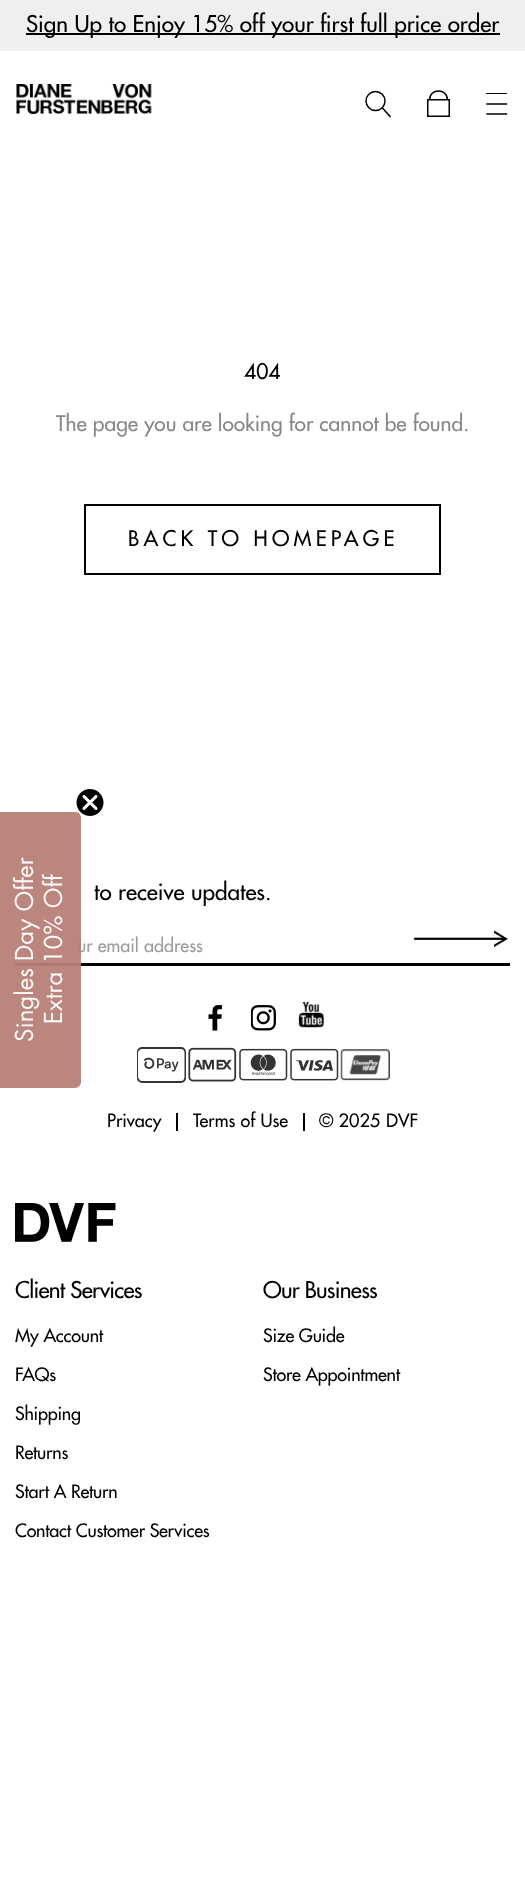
async function draw(canvas) {
  canvas.width = 525;
  canvas.height = 1898;
  const ctx = canvas.getContext('2d');
  ctx.miterLimit = 4;
  ctx.fontKerning = 'normal';
  function label(s, x, y, font, color) {
    ctx.font = font;
    ctx.fillStyle = color;
    ctx.fillText(s, x, y);
  }
  function rect(x, y, w, h, color) {
    ctx.fillStyle = color;
    ctx.fillRect(x, y, w, h);
  }
  async function image(src, x, y, w, h) {
    const img = new Image();
    img.src = src;
    await img.decode();
    ctx.drawImage(img, x, y, w, h);
  }
  let path;

  rect(0, 0, 525, 1898, '#fff');
  rect(0, 0, 525, 51, '#efefef');
  rect(26, 33, 474, 2, '#000');
  label('Sign Up to Enjoy 15% off your first full price order', 26, 32, '500 22.5px Futura', '#000');
  await image('assets/img1.png', 16, 84, 136, 30);
  ctx.beginPath();
  ctx.arc(375.5, 101, 9.5, 0, 2 * Math.PI);
  ctx.strokeStyle = '#000';
  ctx.lineWidth = 1.5;
  ctx.stroke();
  path = new Path2D('M382.5 108L390 116.5');
  ctx.lineCap = 'square';
  ctx.stroke(path);
  ctx.strokeRect(427.75, 99.75, 21.5, 16.5);
  path = new Path2D('M447.5 100C447.5 88 429.5 88 429.5 100');
  ctx.lineCap = 'butt';
  ctx.stroke(path);
  rect(486, 93, 21, 1, '#000');
  path = new Path2D('M487 104H506.5M487 114H506.5');
  ctx.lineWidth = 1.3;
  ctx.lineCap = 'square';
  ctx.stroke(path);
  label('404', 244, 379, '500 21px Futura', '#000');
  label('The page you are looking for cannot be found.', 56, 431, '500 21px Futura', '#888');
  ctx.lineWidth = 2;
  ctx.strokeRect(85, 505, 355, 69);
  ctx.letterSpacing = '4.25px';
  label('BACK TO HOMEPAGE', 128, 546, '500 21px Futura', '#000');
  ctx.letterSpacing = '0px';
  label('to receive updates.', 94, 900, '500 22.5px Futura', '#000');
  rect(15, 963, 495, 3, '#000');
  label('ur email address', 77, 952, '500 18px Futura', '#999d9f');
  await image('assets/img2.png', 414, 930, 94, 18);
  await image('assets/img3.png', 208, 1005, 14, 26);
  await image('assets/img4.png', 251, 1005, 25, 26);
  await image('assets/img5.png', 298, 1002, 26, 26);
  ctx.beginPath();
  ctx.roundRect(138, 1048, 47, 34, 4);
  ctx.strokeStyle = '#333';
  ctx.stroke();
  await image('assets/img6.png', 138, 1050, 47, 29);
  await image('assets/img7.png', 188, 1047, 49, 35);
  await image('assets/img8.png', 239, 1048, 49, 33);
  await image('assets/img9.png', 290, 1048, 49, 33);
  await image('assets/img10.png', 340, 1049, 50, 32);
  label('Privacy', 107, 1127, '500 18px Futura', '#000');
  rect(176, 1113, 2, 18, '#000');
  label('Terms of Use', 193, 1127, '500 18px Futura', '#000');
  rect(303, 1113, 2, 18, '#000');
  label('© 2025', 319, 1127, '500 18px Futura', '#000');
  label('DVF', 386, 1127, '500 18px Futura', '#000');
  await image('assets/img11.png', 15, 1203, 101, 39);
  ctx.letterSpacing = '-0.7px';
  label('Client Services', 15, 1298, '500 22.5px Futura', '#000');
  ctx.letterSpacing = '-0.25px';
  label('My Account', 15, 1342, '500 18px Futura', '#000');
  label('FAQs', 15, 1381, '500 18px Futura', '#000');
  label('Shipping', 15, 1420, '500 18px Futura', '#000');
  label('Returns', 15, 1459, '500 18px Futura', '#000');
  label('Start A Return', 15, 1498, '500 18px Futura', '#000');
  label('Contact Customer Services', 15, 1537, '500 18px Futura', '#000');
  ctx.letterSpacing = '-0.7px';
  label('Our Business', 263, 1298, '500 22.5px Futura', '#000');
  ctx.letterSpacing = '-0.25px';
  label('Size Guide', 263, 1342, '500 18px Futura', '#000');
  label('Store Appointment', 263, 1381, '500 18px Futura', '#000');
  ctx.fillStyle = '#b77e76f0';
  path = new Path2D('M0 1088V812H75C78 812 81 814 81 818V1082C81 1085 78 1088 75 1088Z');
  ctx.fill(path);
  await image('assets/img12.png', 76, 789, 28, 27);
  ctx.letterSpacing = '0px';
  ctx.font = '24px Futura';
  ctx.fillStyle = '#fdfafa';
  ctx.save();
  ctx.translate(33, 1042);
  ctx.rotate(-90 * Math.PI / 180);
  ctx.fillText('Singles Day Offer', 0, 0);
  ctx.restore();
  ctx.save();
  ctx.translate(62, 1024);
  ctx.rotate(-90 * Math.PI / 180);
  ctx.fillText('Extra 10% Off', 0, 0);
  ctx.restore();
}

draw(document.querySelector('canvas'));
